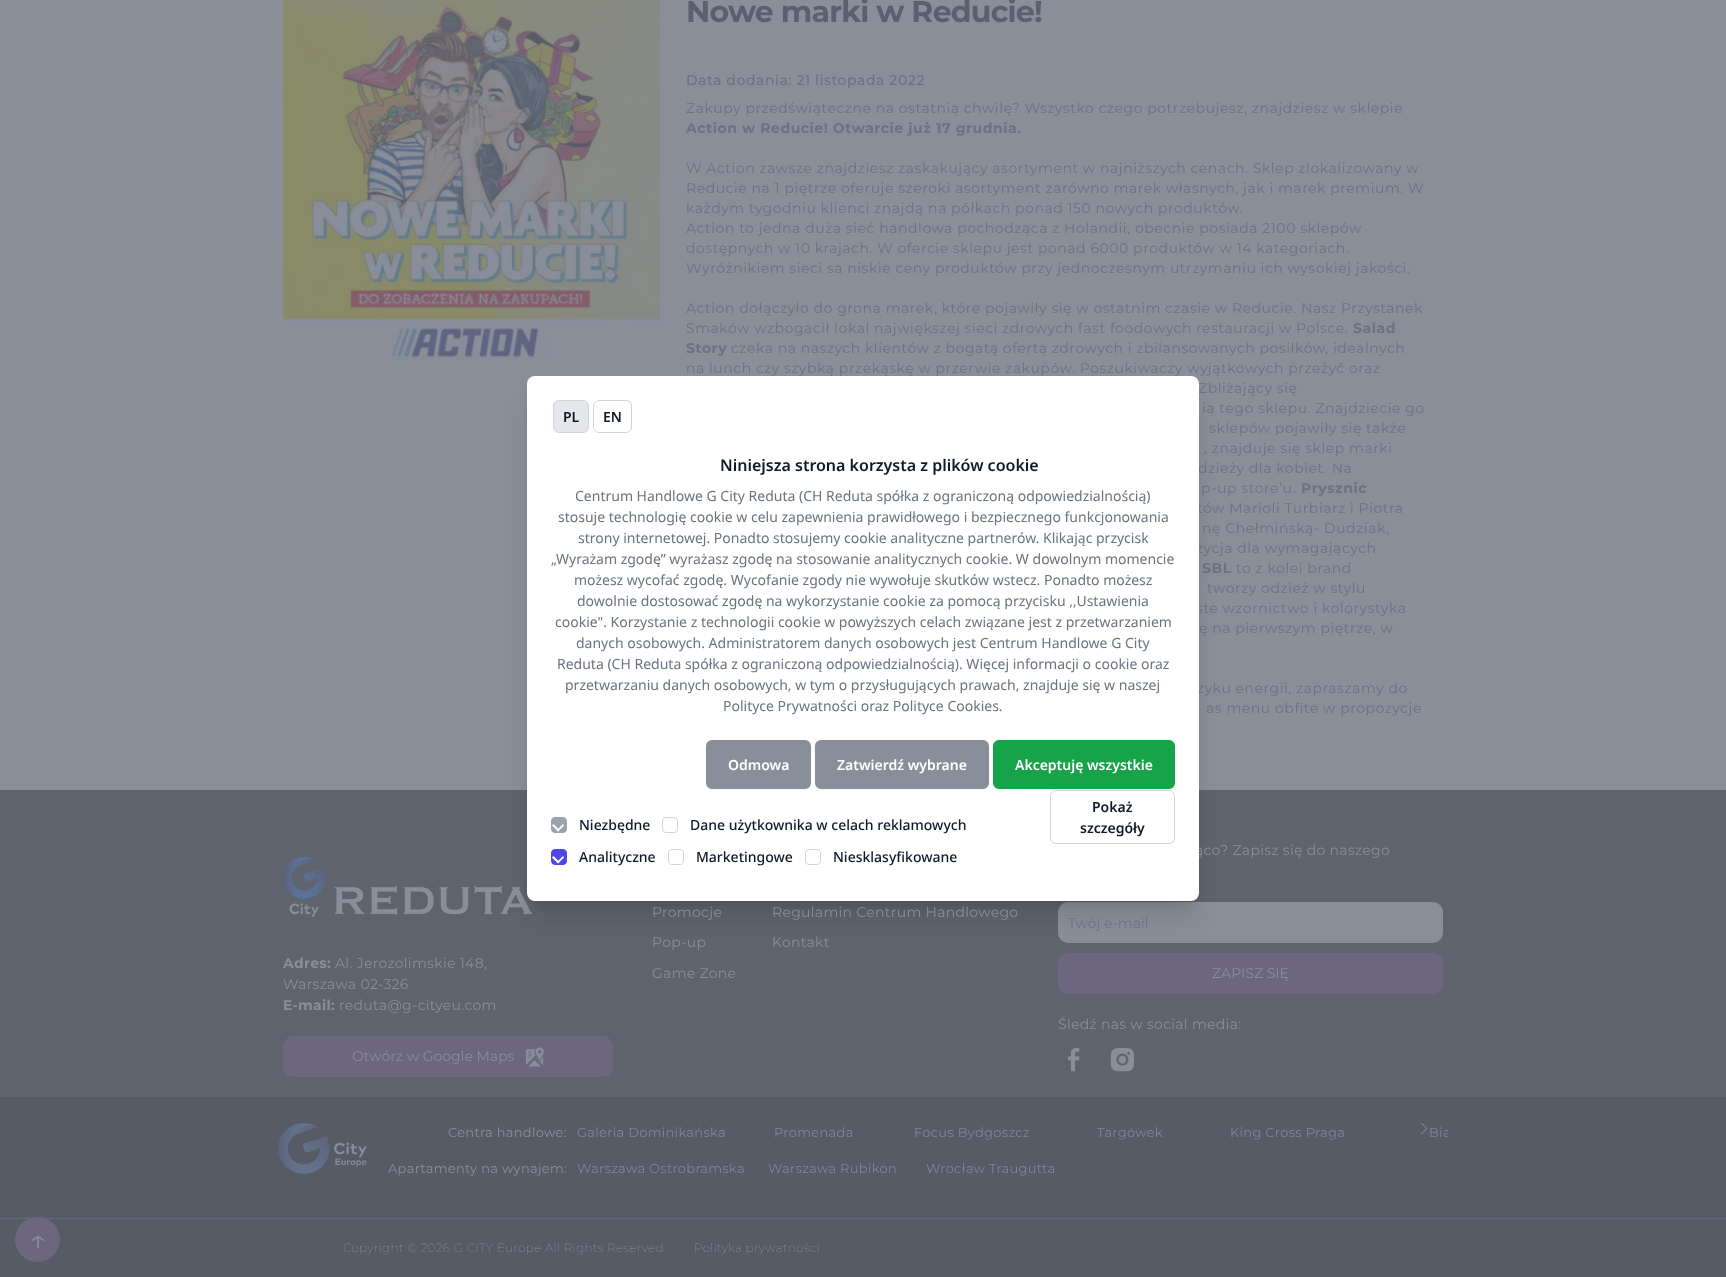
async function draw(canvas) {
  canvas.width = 1726;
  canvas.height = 1277;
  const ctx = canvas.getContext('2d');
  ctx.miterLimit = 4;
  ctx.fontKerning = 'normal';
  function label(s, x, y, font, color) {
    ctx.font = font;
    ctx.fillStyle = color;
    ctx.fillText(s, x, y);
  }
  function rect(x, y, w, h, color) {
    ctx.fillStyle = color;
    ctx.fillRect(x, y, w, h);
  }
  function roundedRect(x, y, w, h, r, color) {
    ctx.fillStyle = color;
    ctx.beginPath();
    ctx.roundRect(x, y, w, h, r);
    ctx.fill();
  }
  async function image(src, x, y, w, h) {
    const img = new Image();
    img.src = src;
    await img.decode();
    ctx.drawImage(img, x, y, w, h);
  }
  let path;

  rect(0, 0, 1726, 1277, '#898e99');
  await image('assets/img1.png', 283, 0, 377, 361);
  ctx.letterSpacing = '-0.75px';
  label('Nowe marki w Reducie!', 686, 22, 'bold 30px Montserrat', '#59606f');
  ctx.letterSpacing = '0.55px';
  label('Data dodania: 21 listopada 2022', 686, 85, '500 14px Montserrat', '#6d737e');
  label('Zakupy przedświąteczne na ostatnią chwilę? Wszystko czego potrzebujesz, znajdziesz w sklepie', 686, 113, '14px Montserrat', '#6d737e');
  label('Action w Reducie! Otwarcie już 17 grudnia.', 686, 133, 'bold 14px Montserrat', '#6d737e');
  label('W Action zawsze znajdziesz zaskakujący asortyment w najniższych cenach. Sklep zlokalizowany w', 686, 173, '14px Montserrat', '#6d737e');
  label('Reducie na 1 piętrze oferuje szeroki asortyment zarówno marek własnych, jak i marek premium. W', 686, 193, '14px Montserrat', '#6d737e');
  label('każdym tygodniu klienci znajdą na półkach ponad 150 nowych produktów.', 686, 213, '14px Montserrat', '#6d737e');
  label('Action to jedna duża sieć handlowa pochodząca z Holandii, obecnie posiada 2100 sklepów', 686, 233, '14px Montserrat', '#6d737e');
  label('dostępnych w 10 krajach. W ofercie sklepu jest ponad 6000 produktów w 14 kategoriach.', 686, 253, '14px Montserrat', '#6d737e');
  label('Wyróżnikiem sieci sa niskie ceny produktów przy jednoczesnym utrzymaniu ich wysokiej jakości.', 686, 273, '14px Montserrat', '#6d737e');
  label('Action dołączyło do grona marek, które pojawiły się w ostatnim czasie w Reducie. Nasz Przystanek', 686, 313, '14px Montserrat', '#6d737e');
  label('Smaków wzbogacił lokal największej sieci zdrowych fast foodowych restauracji w Polsce.', 686, 333, '14px Montserrat', '#6d737e');
  label('Salad', 1353, 333, 'bold 14px Montserrat', '#6d737e');
  label('Story', 686, 353, 'bold 14px Montserrat', '#6d737e');
  label('czeka na naszych klientów z bogatą ofertą zdrowych i zbilansowanych posiłków, idealnych', 731, 353, '14px Montserrat', '#6d737e');
  label('na lunch czy szybką przekąskę w przerwie zakupów. Poszukiwaczy wyjątkowych przeżyć oraz', 686, 373, '14px Montserrat', '#6d737e');
  label('Zbliżający się', 1198, 393, '14px Montserrat', '#6d737e');
  label('ia tego sklepu. Znajdziecie go', 1202, 413, '14px Montserrat', '#6d737e');
  label('sklepów pojawiły się także', 1209, 433, '14px Montserrat', '#6d737e');
  label(', znajduje się sklep marki', 1204, 453, '14px Montserrat', '#6d737e');
  label('dzieży dla kobiet. Na', 1198, 473, '14px Montserrat', '#6d737e');
  label('p-up store’u.', 1201, 493, '14px Montserrat', '#6d737e');
  label('Prysznic', 1301, 493, 'bold 14px Montserrat', '#6d737e');
  label('tów Marioli Turbiarz i Piotra', 1197, 513, '14px Montserrat', '#6d737e');
  label('nę Chełmińską- Dudziak,', 1202, 533, '14px Montserrat', '#6d737e');
  label('zycja dla wymagających', 1196, 553, '14px Montserrat', '#6d737e');
  label('SBL', 1202, 573, 'bold 14px Montserrat', '#6d737e');
  label('to z kolei brand', 1236, 573, '14px Montserrat', '#6d737e');
  label('tworzy odzież w stylu', 1207, 593, '14px Montserrat', '#6d737e');
  label('ste wzornictwo i kolorystyka', 1196, 613, '14px Montserrat', '#6d737e');
  label('ę na pierwszym piętrze, w', 1199, 633, '14px Montserrat', '#6d737e');
  label('zyku energii, zapraszamy do', 1197, 693, '14px Montserrat', '#6d737e');
  label('as menu obfite w propozycje', 1206, 713, '14px Montserrat', '#6d737e');
  rect(0, 790, 1726, 307, '#5e636d');
  roundedRect(1058, 902, 385, 41, 10, '#898e99');
  await image('assets/img4.png', 283, 857, 249, 60);
  ctx.fillStyle = '#0000001a';
  ctx.filter = 'blur(5px)';
  ctx.beginPath();
  ctx.roundRect(533, 390, 660, 513, 2);
  ctx.fill();
  ctx.filter = 'none';
  roundedRect(1058, 953, 385, 41, 10, '#6c667f');
  ctx.fillStyle = '#0000001a';
  ctx.filter = 'blur(12.5px)';
  ctx.beginPath();
  ctx.roundRect(532, 401, 662, 515, 3);
  ctx.fill();
  ctx.filter = 'none';
  ctx.letterSpacing = '0.3px';
  label('ąco? Zapisz się do naszego', 1195, 855, '14px Montserrat', '#898e99');
  roundedRect(527, 376, 672, 525, 8, '#fff');
  ctx.fillStyle = '#e5e7eb';
  ctx.beginPath();
  ctx.roundRect(553.5, 400.5, 35, 32, 5.5);
  ctx.fill();
  ctx.strokeStyle = '#d1d5db';
  ctx.stroke();
  ctx.letterSpacing = '0px';
  label('PL', 563, 422, '600 14px Noto Sans', '#111827');
  ctx.beginPath();
  ctx.roundRect(593.5, 400.5, 38, 32, 5.5);
  ctx.stroke();
  label('EN', 603, 422, '600 14px Noto Sans', '#111827');
  label('Niniejsza strona korzysta z plików cookie', 720, 471, '600 16px Noto Sans', '#111827');
  label('Centrum Handlowe G City Reduta (CH Reduta spółka z ograniczoną odpowiedzialnością)', 575, 501, '14px Noto Sans', '#6d737e');
  label('stosuje technologię cookie w celu zapewnienia prawidłowego i bezpiecznego funkcjonowania', 558, 522, '14px Noto Sans', '#6d737e');
  label('strony internetowej. Ponadto stosujemy cookie analityczne partnerów. Klikając przycisk', 578, 543, '14px Noto Sans', '#6d737e');
  label('„Wyrażam zgodę” wyrażasz zgodę na stosowanie analitycznych cookie. W dowolnym momencie', 551, 564, '14px Noto Sans', '#6d737e');
  label('możesz wycofać zgodę. Wycofanie zgody nie wywołuje skutków wstecz. Ponadto możesz', 574, 585, '14px Noto Sans', '#6d737e');
  label('dowolnie dostosować zgodę na wykorzystanie cookie za pomocą przycisku ,,Ustawienia', 577, 606, '14px Noto Sans', '#6d737e');
  label('cookie". Korzystanie z technologii cookie w powyższych celach związane jest z przetwarzaniem', 555, 627, '14px Noto Sans', '#6d737e');
  label('danych osobowych. Administratorem danych osobowych jest Centrum Handlowe G City', 576, 648, '14px Noto Sans', '#6d737e');
  label('Reduta (CH Reduta spółka z ograniczoną odpowiedzialnością). Więcej informacji o cookie oraz', 557, 669, '14px Noto Sans', '#6d737e');
  label('przetwarzaniu danych osobowych, w tym o przysługujących prawach, znajduje się w naszej', 565, 690, '14px Noto Sans', '#6d737e');
  label('Polityce Prywatności oraz Polityce Cookies.', 723, 711, '14px Noto Sans', '#6d737e');
  ctx.fillStyle = '#0000000d';
  ctx.filter = 'blur(1px)';
  ctx.beginPath();
  ctx.roundRect(706, 741, 105, 49, 6);
  ctx.fill();
  ctx.filter = 'none';
  ctx.fillStyle = '#898f9a';
  ctx.beginPath();
  ctx.roundRect(707, 741, 103, 47, 5);
  ctx.fill();
  ctx.strokeStyle = '#898f9a';
  ctx.lineWidth = 2;
  ctx.stroke();
  label('Odmowa', 728, 770, '600 14px Noto Sans', '#fff');
  ctx.fillStyle = '#0000000d';
  ctx.filter = 'blur(1px)';
  ctx.beginPath();
  ctx.roundRect(815, 741, 174, 49, 6);
  ctx.fill();
  ctx.filter = 'none';
  ctx.fillStyle = '#898f9a';
  ctx.beginPath();
  ctx.roundRect(816, 741, 172, 47, 5);
  ctx.fill();
  ctx.stroke();
  label('Zatwierdź wybrane', 837, 770, '600 14px Noto Sans', '#fff');
  ctx.fillStyle = '#0000000d';
  ctx.filter = 'blur(1px)';
  ctx.beginPath();
  ctx.roundRect(993, 741, 182, 49, 6);
  ctx.fill();
  ctx.filter = 'none';
  ctx.fillStyle = '#16a34a';
  ctx.beginPath();
  ctx.roundRect(994, 741, 180, 47, 5);
  ctx.fill();
  ctx.strokeStyle = '#16a34a';
  ctx.stroke();
  label('Akceptuję wszystkie', 1015, 770, '600 14px Noto Sans', '#fff');
  ctx.fillStyle = '#9ca3af';
  ctx.beginPath();
  ctx.roundRect(551.5, 817.5, 15, 15, 3.5);
  ctx.fill();
  ctx.strokeStyle = '#9ca3af';
  ctx.lineWidth = 1;
  ctx.stroke();
  ctx.fillStyle = '#fff';
  path = new Path2D('M563 824L564 825.5L558 831.5L557 830Z');
  ctx.fill(path);
  path = new Path2D('M553.5 824L559.5 830L558 831.5L552 825.5Z');
  ctx.fill(path);
  label('Niezbędne', 579, 830, '500 14px Noto Sans', '#111827');
  ctx.beginPath();
  ctx.roundRect(662.5, 817.5, 15, 15, 3.5);
  ctx.strokeStyle = '#d1d5db';
  ctx.stroke();
  label('Dane użytkownika w celach reklamowych', 690, 830, '500 14px Noto Sans', '#111827');
  ctx.fillStyle = '#4f46e5';
  ctx.beginPath();
  ctx.roundRect(551.5, 849.5, 15, 15, 3.5);
  ctx.fill();
  ctx.strokeStyle = '#4f46e5';
  ctx.stroke();
  ctx.fillStyle = '#fff';
  path = new Path2D('M563 856L564 857.5L558 863.5L557 862Z');
  ctx.fill(path);
  path = new Path2D('M553.5 856L559.5 862L558 863.5L552 857.5Z');
  ctx.fill(path);
  label('Analityczne', 579, 862, '500 14px Noto Sans', '#111827');
  ctx.beginPath();
  ctx.roundRect(668.5, 849.5, 15, 15, 3.5);
  ctx.strokeStyle = '#d1d5db';
  ctx.stroke();
  label('Marketingowe', 696, 862, '500 14px Noto Sans', '#111827');
  ctx.beginPath();
  ctx.roundRect(805.5, 849.5, 15, 15, 3.5);
  ctx.stroke();
  label('Niesklasyfikowane', 833, 862, '500 14px Noto Sans', '#111827');
  ctx.fillStyle = '#fff';
  ctx.beginPath();
  ctx.roundRect(1050.5, 790.5, 124, 53, 5.5);
  ctx.fill();
  ctx.stroke();
  label('Pokaż', 1092, 812, '600 14px Noto Sans', '#111827');
  label('szczegóły', 1080, 833, '600 14px Noto Sans', '#111827');
  rect(0, 1097, 1726, 121, '#565b66');
  rect(0, 1219, 1726, 58, '#565b66');
  rect(0, 1218, 1726, 1, '#636974');
  ctx.fillStyle = '#6c667f';
  ctx.beginPath();
  ctx.arc(37.5, 1239.5, 22.5, 0, 2 * Math.PI);
  ctx.fill();
  label('↑', 29, 1250, '30px Montserrat', '#898e99');
  ctx.letterSpacing = '0.3px';
  label('Promocje', 652, 917, '14px Montserrat', '#898e99');
  label('Pop-up', 652, 947, '14px Montserrat', '#898e99');
  label('Game Zone', 652, 978, '14px Montserrat', '#898e99');
  label('Regulamin Centrum Handlowego', 772, 917, '14px Montserrat', '#898e99');
  label('Kontakt', 772, 947, '14px Montserrat', '#898e99');
  ctx.letterSpacing = '0px';
  label('Twój e-mail', 1068, 928, '14px Montserrat', '#6d737e');
  label('ZAPISZ SIĘ', 1212, 978, '14px Montserrat', '#898e99');
  ctx.letterSpacing = '0.3px';
  label('Śledź nas w social media:', 1058, 1029, '14px Montserrat', '#898e99');
  await image('assets/img2.png', 1068, 1048, 12, 24);
  await image('assets/img3.png', 1110, 1048, 25, 24);
  label('Adres:', 283, 968, 'bold 14px Montserrat', '#898e99');
  label('Al. Jerozolimskie 148,', 335, 968, '14px Montserrat', '#898e99');
  label('Warszawa 02-326', 283, 989, '14px Montserrat', '#898e99');
  label('E-mail:', 283, 1010, 'bold 14px Montserrat', '#898e99');
  label('reduta@g-cityeu.com', 339, 1010, '14px Montserrat', '#898e99');
  roundedRect(283, 1036, 330, 41, 10, '#6c667f');
  ctx.letterSpacing = '0px';
  label('Otwórz w Google Maps', 352, 1061, '14px Montserrat', '#898e99');
  await image('assets/img5.png', 525, 1047, 19, 20);
  await image('assets/img6.png', 278, 1123, 89, 51);
  ctx.letterSpacing = '0.3px';
  label('Centra handlowe:', 448, 1137, '13px Montserrat', '#898e99');
  await image('assets/img7.png', 1421, 1123, 7, 12);
  label('Galeria Dominikańska', 577, 1137, '13px Montserrat', '#7f8692');
  label('Promenada', 774, 1137, '13px Montserrat', '#7f8692');
  label('Focus Bydgoszcz', 914, 1137, '13px Montserrat', '#7f8692');
  label('Targówek', 1097, 1137, '13px Montserrat', '#7f8692');
  label('King Cross Praga', 1230, 1137, '13px Montserrat', '#7f8692');
  ctx.save();
  ctx.beginPath();
  ctx.rect(567, 1123, 881, 36);
  ctx.clip();
  label('Bia', 1429, 1137, '13px Montserrat', '#7f8692');
  ctx.restore();
  label('Apartamenty na wynajem:', 388, 1173, '13px Montserrat', '#898e99');
  label('Warszawa Ostrobramska', 577, 1173, '13px Montserrat', '#7f8692');
  label('Warszawa Rubikon', 768, 1173, '13px Montserrat', '#7f8692');
  label('Wrocław Traugutta', 926, 1173, '13px Montserrat', '#7f8692');
  label('Copyright © 2026 G CITY Europe All Rights Reserved', 343, 1252, '200 12px Montserrat', '#898e99');
  label('Polityka prywatności', 694, 1252, '200 12px Montserrat', '#898e99');
}

draw(document.querySelector('canvas'));
